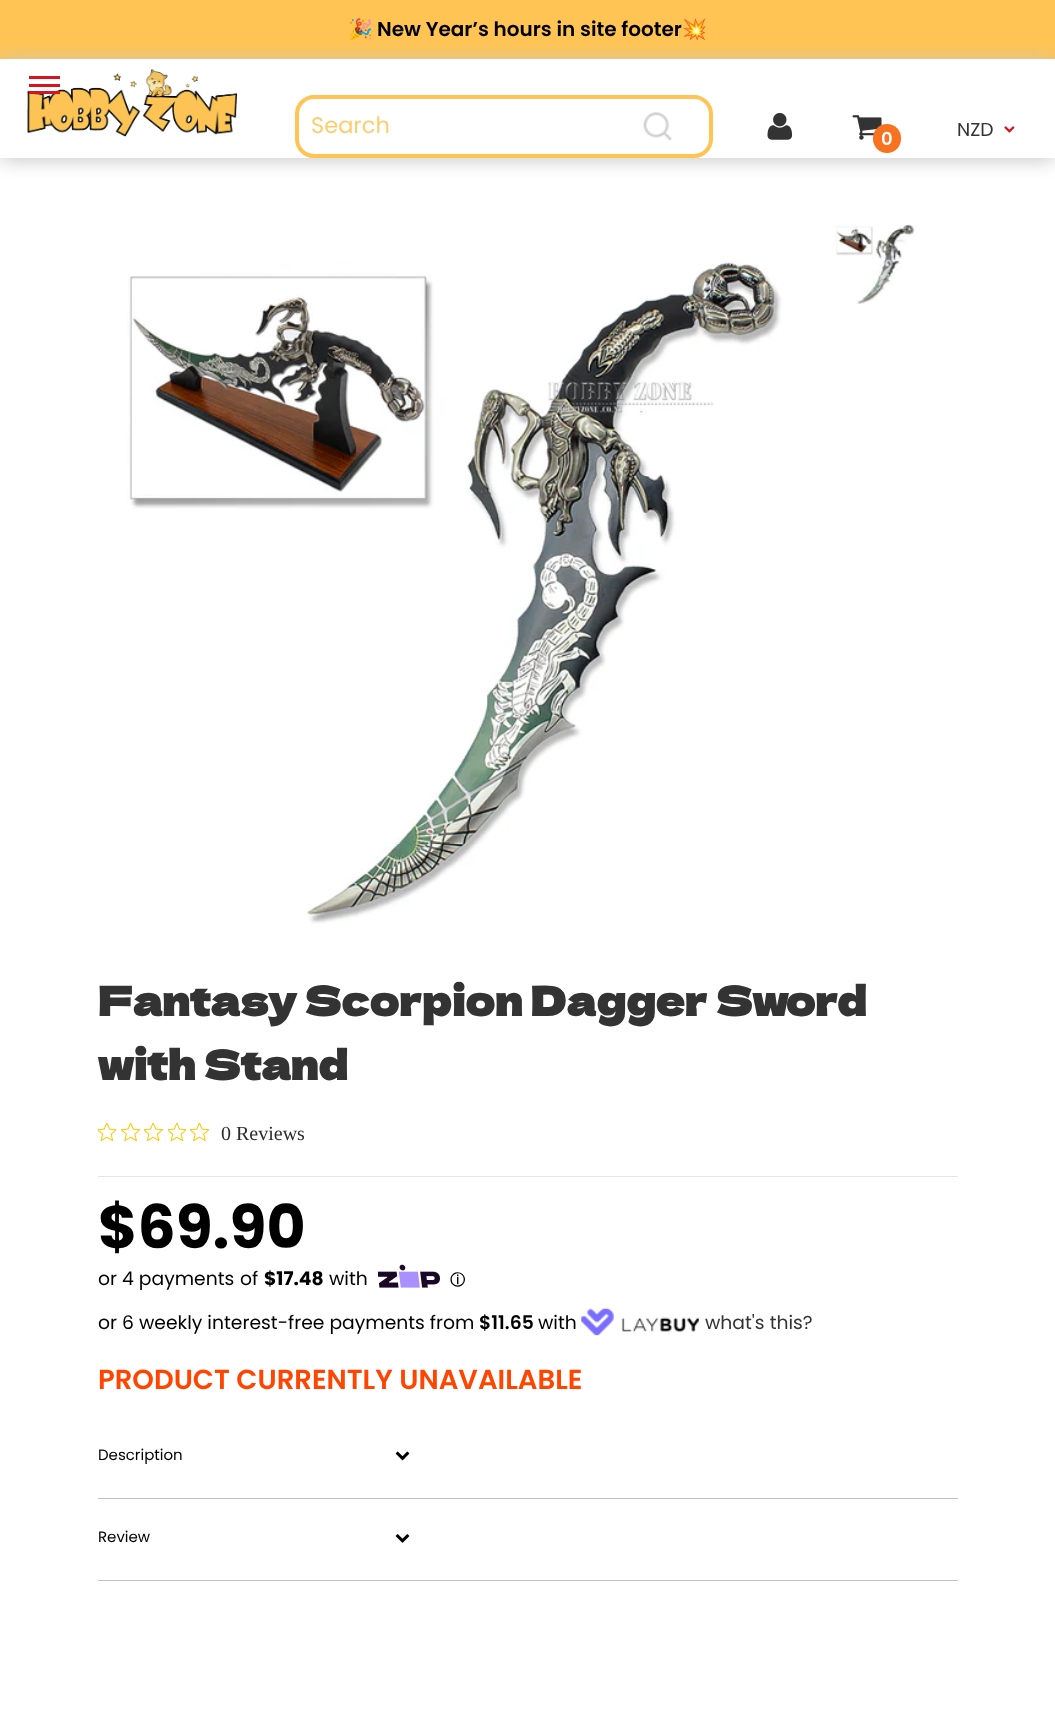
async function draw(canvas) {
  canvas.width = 1055;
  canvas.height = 1710;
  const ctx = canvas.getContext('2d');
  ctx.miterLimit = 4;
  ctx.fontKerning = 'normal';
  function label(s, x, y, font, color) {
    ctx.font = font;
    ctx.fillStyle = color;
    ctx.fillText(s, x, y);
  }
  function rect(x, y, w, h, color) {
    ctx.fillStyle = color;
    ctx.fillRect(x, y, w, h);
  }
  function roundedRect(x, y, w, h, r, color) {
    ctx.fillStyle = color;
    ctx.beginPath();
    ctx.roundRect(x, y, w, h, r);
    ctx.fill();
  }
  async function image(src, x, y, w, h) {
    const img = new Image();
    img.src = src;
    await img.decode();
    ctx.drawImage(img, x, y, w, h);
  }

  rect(0, 0, 1055, 1710, '#fff');
  rect(0, 0, 1055, 59, '#ffc453');
  label('🎉', 348, 36, 'bold 20px Noto Color Emoji', '#000');
  label('New Year’s hours in site footer', 377, 36, '600 20px Poppins', '#000');
  label('💥', 682, 36, 'bold 20px Noto Color Emoji', '#000');
  ctx.fillStyle = '#c8c8c8';
  ctx.filter = 'blur(9.5px)';
  ctx.beginPath();
  ctx.rect(0, 61, 1055, 99);
  ctx.fill();
  ctx.filter = 'none';
  rect(0, 59, 1055, 99, '#fff');
  await image('assets/img1.png', 26, 69, 211, 68);
  rect(29, 76, 31, 3, '#d9121f');
  rect(29, 84, 31, 3, '#d9121f');
  rect(29, 91, 31, 3, '#d9121f');
  ctx.beginPath();
  ctx.roundRect(297, 97, 414, 59, 17);
  ctx.strokeStyle = '#ffc454';
  ctx.lineWidth = 4;
  ctx.stroke();
  label('Search', 311, 133, '22.5px Poppins', '#ffcd6c');
  await image('assets/img2.png', 643, 112, 29, 28);
  await image('assets/img3.png', 767, 112, 26, 28);
  label('NZD', 957, 136, '18.75px Poppins', '#333');
  await image('assets/img4.png', 1004, 126, 11, 7);
  await image('assets/img5.png', 852, 115, 30, 25);
  roundedRect(873, 124, 28, 29, 14, '#f8721f');
  label('0', 881, 145, '600 18px Poppins', '#fff');
  await image('assets/img6.png', 127, 260, 655, 664);
  await image('assets/img7.png', 835, 224, 82, 80);
  label('Fantasy Scorpion Dagger Sword', 98, 1016, 'bold 40px Dela Gothic One', '#333');
  label('with Stand', 98, 1080, 'bold 40px Dela Gothic One', '#333');
  await image('assets/img8.png', 98, 1123, 18, 18);
  await image('assets/img9.png', 121, 1123, 19, 18);
  await image('assets/img10.png', 144, 1123, 19, 18);
  await image('assets/img8.png', 168, 1123, 18, 18);
  await image('assets/img11.png', 190, 1123, 19, 18);
  label('0 Reviews', 221, 1140, '20px Liberation Serif', '#2c2c2c');
  rect(98, 1176, 860, 1, '#e5e5e5');
  label('$69.90', 98, 1248, 'bold 60px Poppins', '#000');
  label('or', 98, 1285, '18.75px Poppins', '#000');
  label('4 payments', 122, 1285, '18.75px Poppins', '#000');
  label('of', 240, 1285, '18.75px Poppins', '#000');
  label('$17.48', 264, 1285, 'bold 18.75px Poppins', '#000');
  label('with', 329, 1285, '18.75px Poppins', '#000');
  await image('assets/img12.png', 378, 1264, 62, 24);
  label('ⓘ', 450, 1285, 'bold 15px WenQuanYi Zen Hei', '#000');
  label('or 6 weekly interest-free payments from', 98, 1329, '18.75px Poppins', '#000');
  label('$11.65', 479, 1329, '600 18.75px Poppins', '#000');
  label('with', 538, 1329, '18.75px Poppins', '#000');
  await image('assets/img13.png', 581, 1308, 118, 28);
  label('what\'s this?', 705, 1329, '18.75px Poppins', '#333');
  label('PRODUCT CURRENTLY UNAVAILABLE', 98, 1389, '600 27.5px Poppins', '#ff4500');
  rect(98, 1498, 860, 1, '#c0c0c0');
  label('Description', 98, 1460, '15px Poppins', '#000');
  await image('assets/img14.png', 395, 1451, 15, 10);
  rect(98, 1580, 860, 1, '#c0c0c0');
  label('Review', 98, 1542, '15px Poppins', '#000');
  await image('assets/img15.png', 395, 1534, 15, 9);
}

draw(document.querySelector('canvas'));
